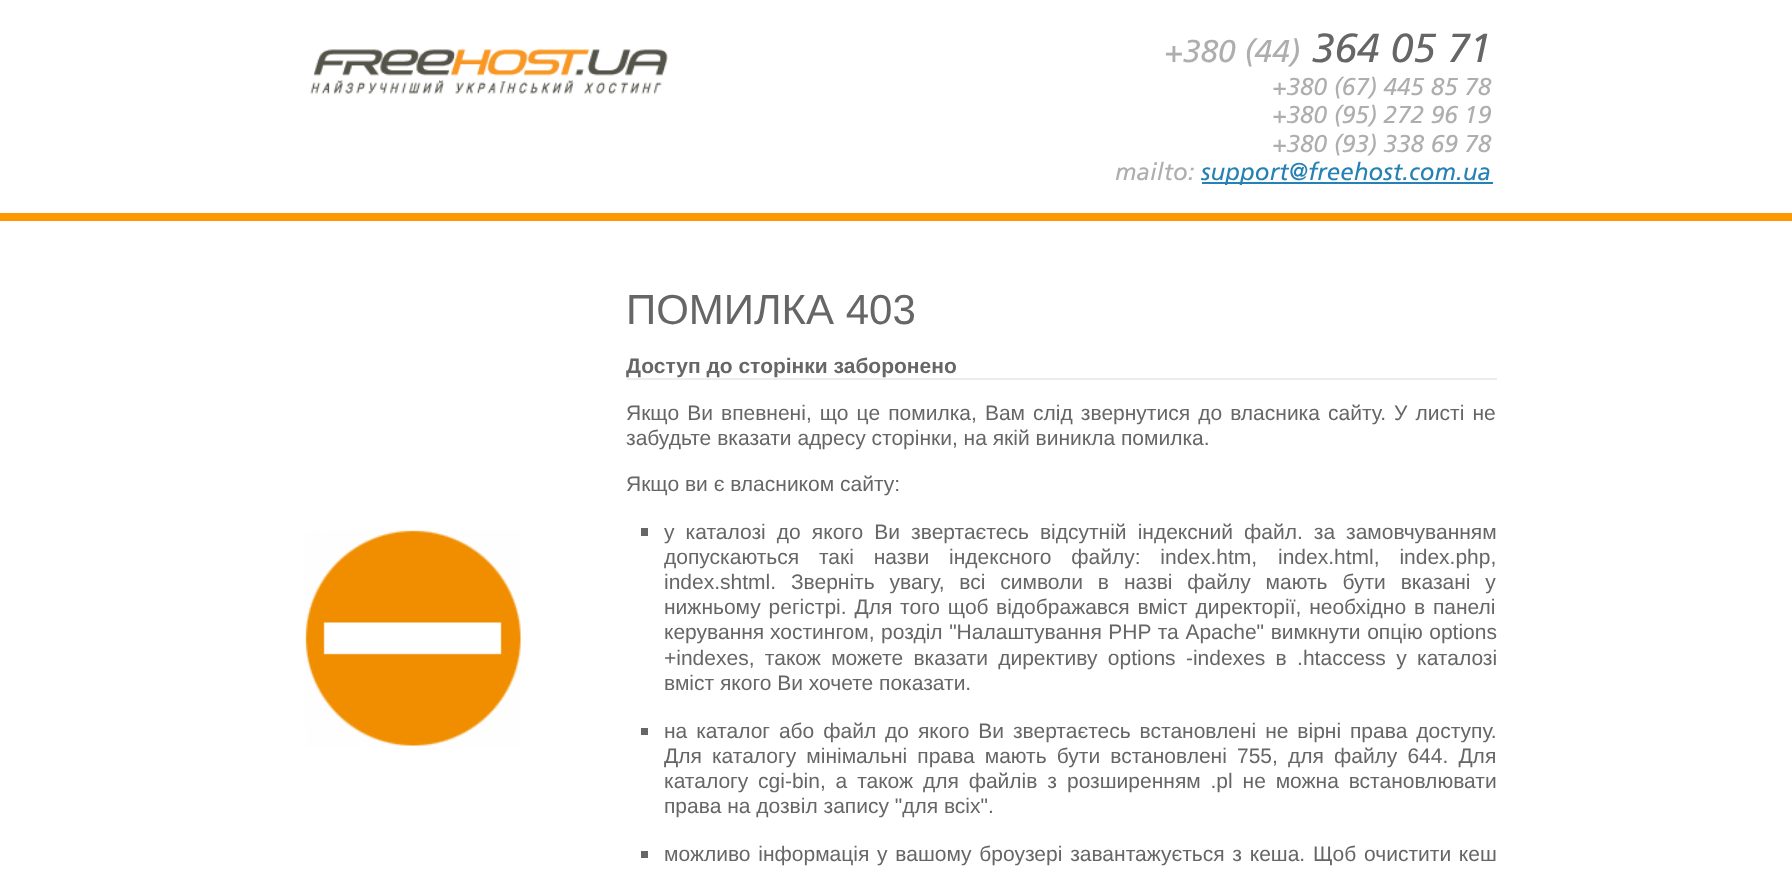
async function draw(canvas) {
  canvas.width = 1792;
  canvas.height = 876;
  const ctx = canvas.getContext('2d');
  ctx.miterLimit = 4;
  ctx.fontKerning = 'normal';
  function label(s, x, y, font, color) {
    ctx.font = font;
    ctx.fillStyle = color;
    ctx.fillText(s, x, y);
  }
  function rect(x, y, w, h, color) {
    ctx.fillStyle = color;
    ctx.fillRect(x, y, w, h);
  }
  async function image(src, x, y, w, h) {
    const img = new Image();
    img.src = src;
    await img.decode();
    ctx.drawImage(img, x, y, w, h);
  }

  rect(0, 0, 1792, 876, '#fff');
  rect(0, 213, 1792, 8, '#ff9700');
  await image('assets/img1.png', 310, 49, 358, 45);
  label('+380 (44)', 1164, 62, 'italic 31.5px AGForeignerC', '#adaead');
  label('364 05 71', 1312, 62, 'italic 40.5px AGForeignerC', '#666');
  label('+380 (67) 445 85 78', 1272, 95, 'italic 24.25px AGForeignerC', '#adaead');
  label('+380 (95) 272 96 19', 1272, 123, 'italic 24.25px AGForeignerC', '#adaead');
  label('+380 (93) 338 69 78', 1272, 152, 'italic 24.25px AGForeignerC', '#adaead');
  label('mailto:', 1115, 180, 'italic 24.25px AGForeignerC', '#adaead');
  rect(1202, 182, 291, 2, '#2681b5');
  label('support@freehost.com.ua', 1201, 180, 'italic 24.25px AGForeignerC', '#2681b5');
  await image('assets/img2.png', 305, 530, 216, 216);
  label('ПОМИЛКА 403', 626, 324, '42px Liberation Sans', '#666');
  label('Доступ до сторінки заборонено', 626, 373, 'bold 21px Liberation Sans', '#666');
  rect(627, 378, 870, 2, '#efedeb');
  ctx.wordSpacing = '2.25px';
  label('Якщо Ви впевнені, що це помилка, Вам слід звернутися до власника сайту. У листі не', 626, 420, '21px Liberation Sans', '#666');
  ctx.wordSpacing = '0px';
  label('забудьте вказати адресу сторінки, на якій виникла помилка.', 626, 445, '21px Liberation Sans', '#666');
  label('Якщо ви є власником сайту:', 626, 491, '21px Liberation Sans', '#666');
  rect(641, 528, 7, 8, '#666');
  ctx.wordSpacing = '5.25px';
  label('у каталозі до якого Ви звертаєтесь відсутній індексний файл. за', 664, 539, '21px Liberation Sans', '#666');
  ctx.wordSpacing = '0px';
  label('замовчуванням', 1346, 539, '21px Liberation Sans', '#666');
  ctx.wordSpacing = '14px';
  label('допускаються такі назви індексного файлу: index.htm,', 664, 564, '21px Liberation Sans', '#666');
  label('index.html, index.php,', 1278, 564, '21px Liberation Sans', '#666');
  ctx.wordSpacing = '9px';
  label('index.shtml. Зверніть увагу, всі символи в', 664, 589, '21px Liberation Sans', '#666');
  label('назві файлу мають бути вказані у', 1124, 589, '21px Liberation Sans', '#666');
  ctx.wordSpacing = '2px';
  label('нижньому регістрі. Для того щоб', 664, 614, '21px Liberation Sans', '#666');
  label('відображався вміст директорії, необхідно в панелі', 996, 614, '21px Liberation Sans', '#666');
  ctx.wordSpacing = '0px';
  label('керування', 664, 639, '21px Liberation Sans', '#666');
  ctx.wordSpacing = '0.75px';
  label('хостингом, розділ "Налаштування PHP та Apache" вимкнути опцію options', 770, 639, '21px Liberation Sans', '#666');
  ctx.wordSpacing = '4.5px';
  label('+indexes, також можете вказати директиву options -indexes в .htaccess у каталозі', 664, 665, '21px Liberation Sans', '#666');
  ctx.wordSpacing = '0px';
  label('вміст якого Ви хочете показати.', 664, 690, '21px Liberation Sans', '#666');
  rect(641, 728, 7, 7, '#666');
  ctx.wordSpacing = '3.1px';
  label('на каталог або файл до якого Ви звертаєтесь встановлені не вірні', 664, 738, '21px Liberation Sans', '#666');
  label('права доступу.', 1350, 738, '21px Liberation Sans', '#666');
  ctx.wordSpacing = '4.25px';
  label('Для каталогу мінімальні права мають бути встановлені', 664, 763, '21px Liberation Sans', '#666');
  label('755, для файлу 644. Для', 1237, 763, '21px Liberation Sans', '#666');
  ctx.wordSpacing = '4px';
  label('каталогу cgi-bin, а також для файлів з', 664, 788, '21px Liberation Sans', '#666');
  label('розширенням .pl не можна встановлювати', 1067, 788, '21px Liberation Sans', '#666');
  ctx.wordSpacing = '0px';
  label('права на дозвіл запису "для всіх".', 664, 813, '21px Liberation Sans', '#666');
  rect(641, 851, 7, 7, '#666');
  ctx.wordSpacing = '1.9px';
  label('можливо інформація у вашому броузері завантажується з кеша. Щоб очистити кеш', 664, 861, '21px Liberation Sans', '#666');
}

draw(document.querySelector('canvas'));
